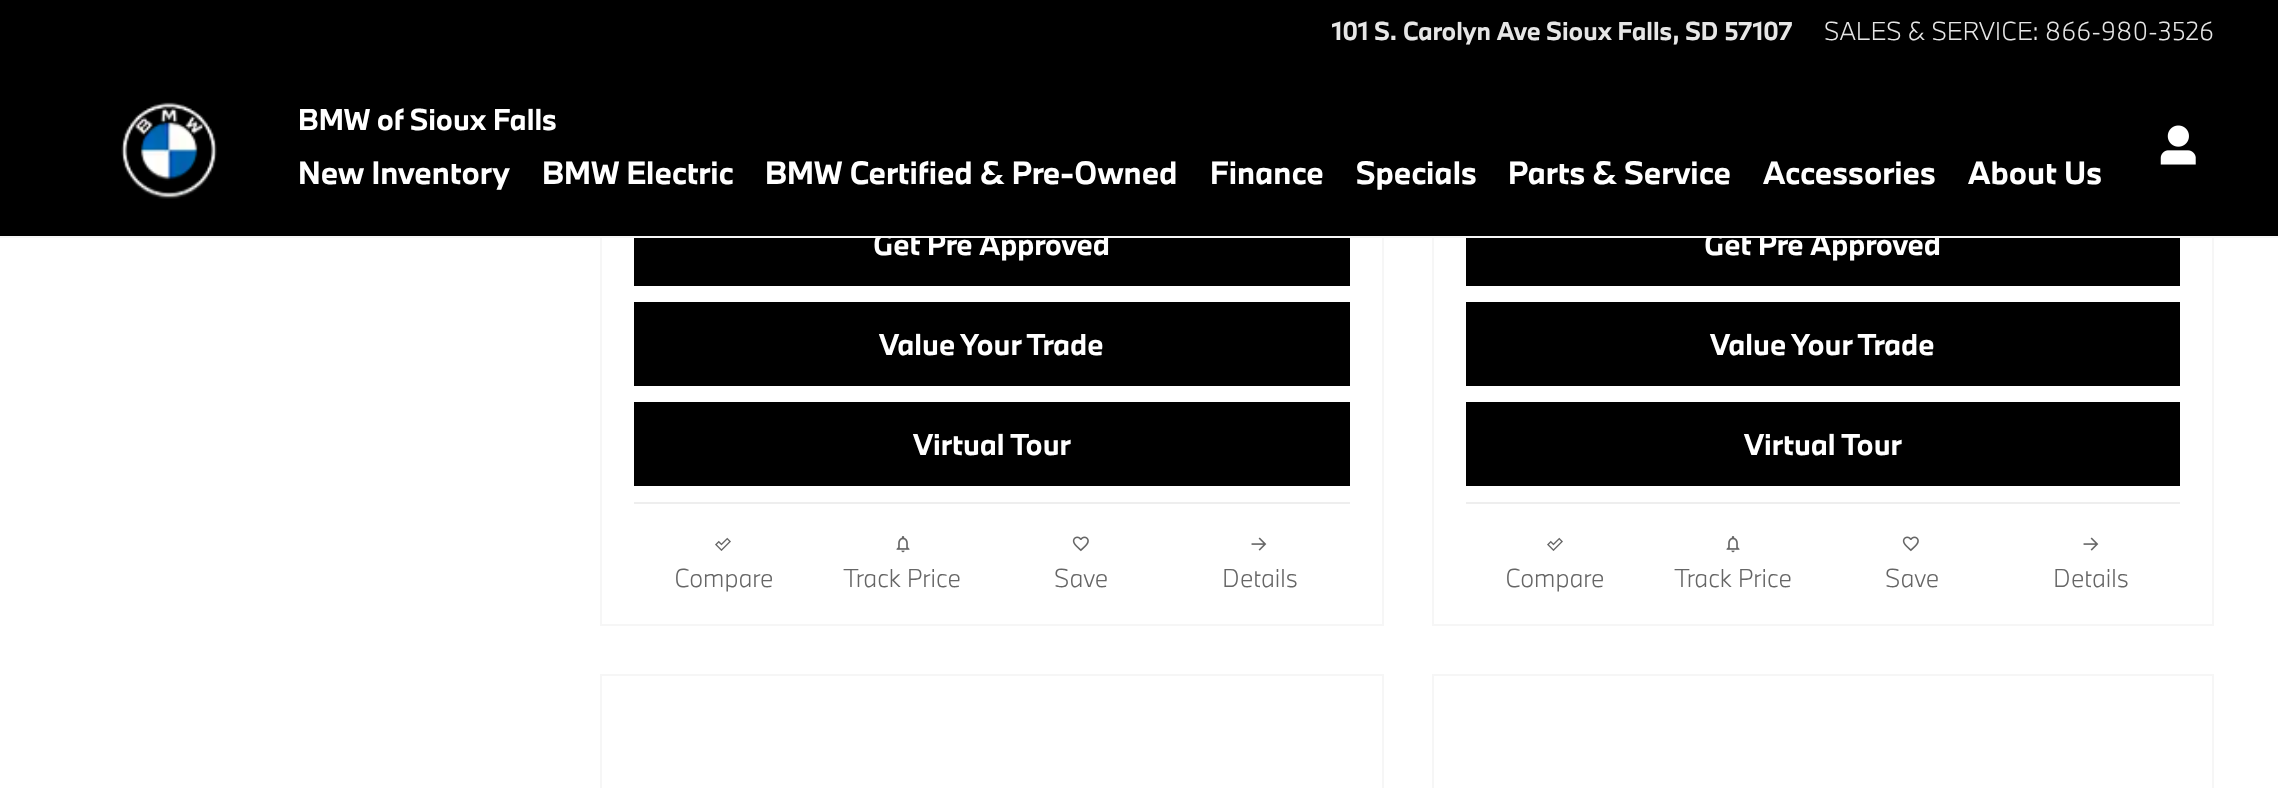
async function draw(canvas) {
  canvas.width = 2278;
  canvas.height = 788;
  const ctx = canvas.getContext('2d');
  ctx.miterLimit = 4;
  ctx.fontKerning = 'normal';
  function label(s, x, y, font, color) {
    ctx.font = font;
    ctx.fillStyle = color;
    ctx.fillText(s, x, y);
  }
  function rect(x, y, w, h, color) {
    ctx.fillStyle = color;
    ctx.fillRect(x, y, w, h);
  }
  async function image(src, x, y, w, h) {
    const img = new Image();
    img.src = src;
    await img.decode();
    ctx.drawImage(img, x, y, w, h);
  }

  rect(0, 0, 2278, 788, '#fff');
  ctx.strokeStyle = '#f6f6f6';
  ctx.lineWidth = 2;
  ctx.strokeRect(601, -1, 782, 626);
  rect(634, 238, 716, 48, '#000');
  label('Get Pre Approved', 873, 255, 'bold 28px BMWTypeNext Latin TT', '#fff');
  ctx.strokeRect(1433, -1, 780, 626);
  rect(1466, 238, 714, 48, '#000');
  label('Get Pre Approved', 1704, 255, 'bold 28px BMWTypeNext Latin TT', '#fff');
  rect(0, 236, 2278, 2, '#f6f6f6');
  rect(0, 0, 2278, 236, '#000');
  label('101 S. Carolyn Ave Sioux Falls, SD 57107', 1332, 40, 'bold 24px BMWTypeNext Latin TT', '#e6e6e6');
  label('SALES & SERVICE: 866-980-3526', 1824, 40, '300 24px BMWTypeNext Latin TT', '#e6e6e6');
  await image('assets/img1.png', 121, 102, 96, 97);
  label('BMW of Sioux Falls', 298, 130, 'bold 28px BMWTypeNext Latin TT', '#fff');
  label('New Inventory', 298, 184, 'bold 30px BMWTypeNext Latin TT', '#fff');
  label('BMW Electric', 542, 184, 'bold 30px BMWTypeNext Latin TT', '#fff');
  label('BMW Certified & Pre-Owned', 765, 184, 'bold 30px BMWTypeNext Latin TT', '#fff');
  label('Finance', 1210, 184, 'bold 30px BMWTypeNext Latin TT', '#fff');
  label('Specials', 1356, 184, 'bold 30px BMWTypeNext Latin TT', '#fff');
  label('Parts & Service', 1508, 184, 'bold 30px BMWTypeNext Latin TT', '#fff');
  label('Accessories', 1763, 184, 'bold 30px BMWTypeNext Latin TT', '#fff');
  label('About Us', 1968, 184, 'bold 30px BMWTypeNext Latin TT', '#fff');
  await image('assets/img2.png', 2160, 125, 36, 40);
  rect(634, 302, 716, 84, '#000');
  label('Value Your Trade', 879, 355, 'bold 28px BMWTypeNext Latin TT', '#fff');
  rect(634, 402, 716, 84, '#000');
  label('Virtual Tour', 913, 455, 'bold 28px BMWTypeNext Latin TT', '#fff');
  rect(634, 502, 716, 2, '#eee');
  await image('assets/img3.png', 715, 537, 16, 14);
  label('Compare', 674, 587, '300 24px BMWTypeNext Latin TT', '#666');
  await image('assets/img4.png', 896, 536, 14, 17);
  label('Track Price', 843, 587, '300 24px BMWTypeNext Latin TT', '#666');
  await image('assets/img5.png', 1072, 536, 17, 16);
  label('Save', 1054, 587, '300 24px BMWTypeNext Latin TT', '#666');
  await image('assets/img6.png', 1251, 537, 16, 14);
  label('Details', 1222, 587, '300 24px BMWTypeNext Latin TT', '#666');
  rect(1466, 302, 714, 84, '#000');
  label('Value Your Trade', 1710, 355, 'bold 28px BMWTypeNext Latin TT', '#fff');
  rect(1466, 402, 714, 84, '#000');
  label('Virtual Tour', 1744, 455, 'bold 28px BMWTypeNext Latin TT', '#fff');
  rect(1466, 502, 714, 2, '#eee');
  await image('assets/img3.png', 1547, 537, 16, 14);
  label('Compare', 1505, 587, '300 24px BMWTypeNext Latin TT', '#666');
  await image('assets/img4.png', 1726, 536, 14, 17);
  label('Track Price', 1674, 587, '300 24px BMWTypeNext Latin TT', '#666');
  await image('assets/img5.png', 1902, 536, 17, 16);
  label('Save', 1885, 587, '300 24px BMWTypeNext Latin TT', '#666');
  await image('assets/img6.png', 2083, 537, 16, 14);
  label('Details', 2053, 587, '300 24px BMWTypeNext Latin TT', '#666');
  ctx.strokeRect(601, 675, 782, 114);
  ctx.strokeRect(1433, 675, 780, 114);
}

draw(document.querySelector('canvas'));
